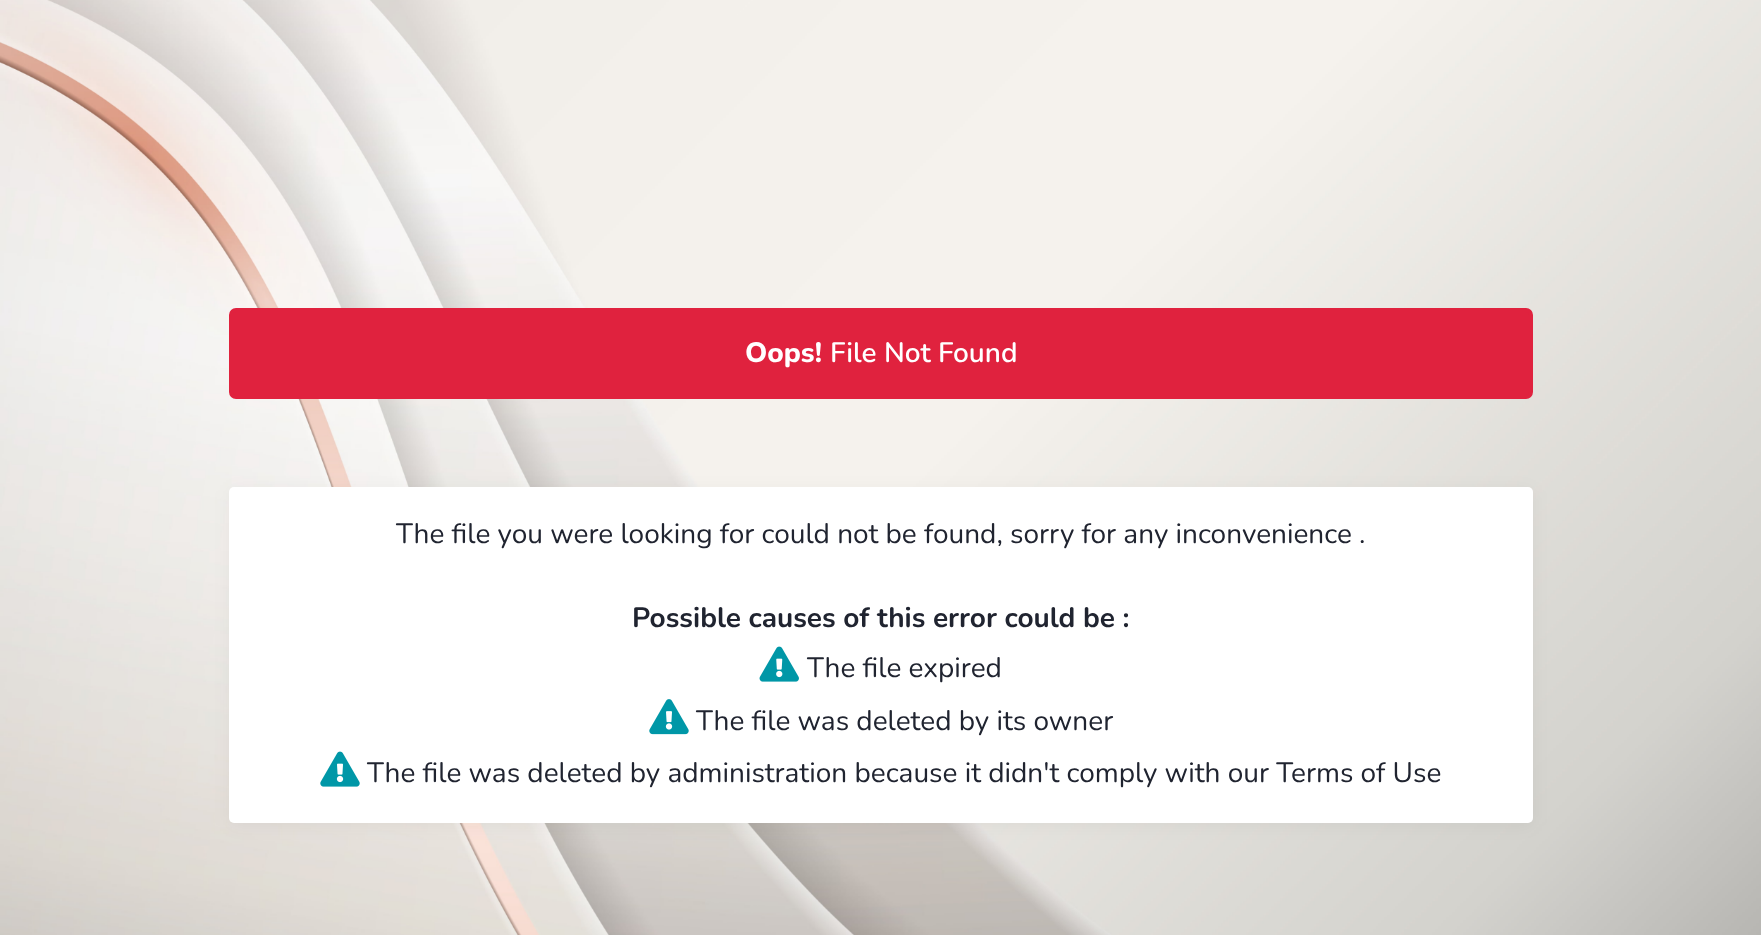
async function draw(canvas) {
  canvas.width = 1761;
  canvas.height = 935;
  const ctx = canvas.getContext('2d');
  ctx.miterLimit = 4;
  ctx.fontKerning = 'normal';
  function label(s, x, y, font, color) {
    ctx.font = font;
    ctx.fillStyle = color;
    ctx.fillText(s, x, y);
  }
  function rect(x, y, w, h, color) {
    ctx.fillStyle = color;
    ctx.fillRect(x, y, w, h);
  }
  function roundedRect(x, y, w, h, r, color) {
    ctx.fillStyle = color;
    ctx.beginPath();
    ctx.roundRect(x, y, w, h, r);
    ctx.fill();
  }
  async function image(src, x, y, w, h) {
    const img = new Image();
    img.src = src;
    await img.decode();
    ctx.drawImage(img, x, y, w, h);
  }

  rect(0, 0, 1761, 935, '#fff');
  await image('assets/img1.png', 0, 0, 1761, 935);
  ctx.fillStyle = '#e0223e';
  ctx.beginPath();
  ctx.roundRect(231, 310, 1300, 87, 5);
  ctx.fill();
  ctx.strokeStyle = '#e0223e';
  ctx.lineWidth = 4;
  ctx.stroke();
  label('Oops!', 745, 362, '800 28px Nunito', '#fff');
  label('File Not Found', 830, 362, '600 28px Nunito', '#fff');
  ctx.fillStyle = '#0000000a';
  ctx.filter = 'blur(9px)';
  ctx.beginPath();
  ctx.roundRect(229, 490, 1304, 336, 5);
  ctx.fill();
  ctx.filter = 'none';
  roundedRect(229, 487, 1304, 336, 5, '#fff');
  label('The file you were looking for could not be found, sorry for any inconvenience .', 396, 543, '28px Nunito', '#202430');
  label('Possible causes of this error could be :', 632, 627, 'bold 28px Nunito', '#202430');
  await image('assets/img2.png', 759, 646, 40, 36);
  label('The file expired', 807, 677, '28px Nunito', '#202430');
  await image('assets/img3.png', 649, 699, 40, 36);
  label('The file was deleted by its owner', 696, 730, '28px Nunito', '#202430');
  await image('assets/img4.png', 320, 751, 40, 36);
  label('The file was deleted by administration because it didn\'t comply with our Terms of Use', 367, 782, '28px Nunito', '#202430');
}

draw(document.querySelector('canvas'));
